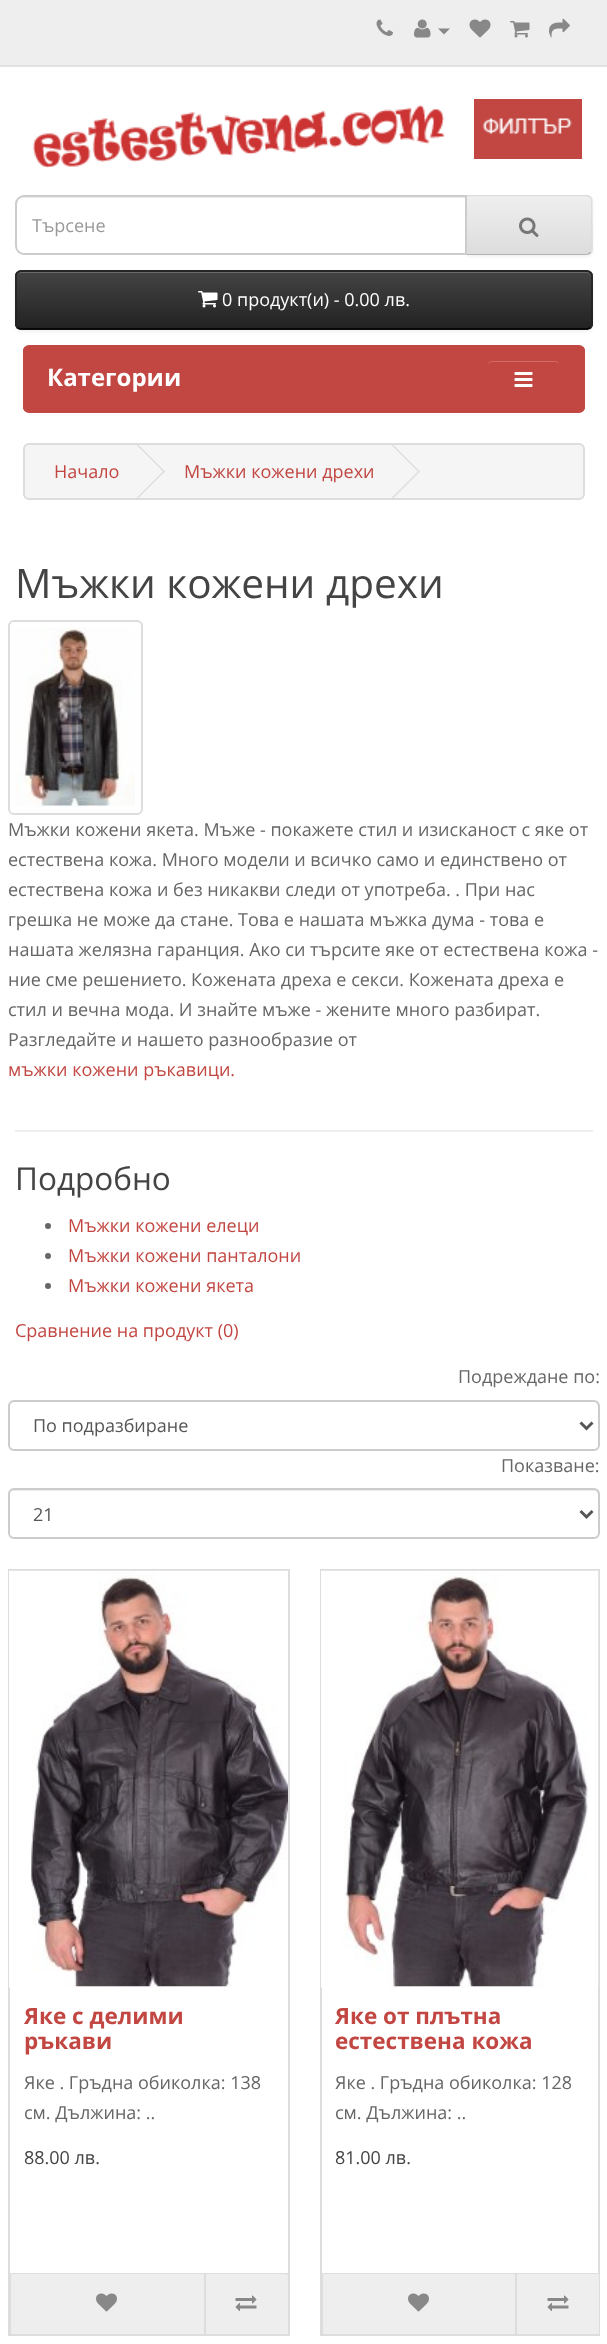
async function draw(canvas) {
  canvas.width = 607;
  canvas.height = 2344;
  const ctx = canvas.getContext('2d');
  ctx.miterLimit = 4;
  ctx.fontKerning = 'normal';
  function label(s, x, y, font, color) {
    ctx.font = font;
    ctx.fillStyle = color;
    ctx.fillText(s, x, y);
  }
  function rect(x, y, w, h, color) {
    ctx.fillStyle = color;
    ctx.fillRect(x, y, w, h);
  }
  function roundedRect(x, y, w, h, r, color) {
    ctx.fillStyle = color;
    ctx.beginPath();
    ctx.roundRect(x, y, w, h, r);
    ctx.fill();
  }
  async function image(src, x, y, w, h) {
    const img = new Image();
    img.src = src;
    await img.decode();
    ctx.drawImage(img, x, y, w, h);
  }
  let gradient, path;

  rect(0, 0, 607, 2344, '#fff');
  rect(0, 0, 607, 65, '#eee');
  rect(0, 65, 607, 2, '#e2e2e2');
  await image('assets/img1.png', 376, 19, 17, 17);
  await image('assets/img2.png', 414, 19, 17, 19);
  ctx.fillStyle = '#888';
  path = new Path2D('M438 28.5H450L444 34.5Z');
  ctx.fill(path);
  await image('assets/img3.png', 469, 19, 22, 19);
  await image('assets/img4.png', 510, 21, 20, 17);
  await image('assets/img5.png', 549, 18, 21, 20);
  rect(474, 99, 108, 60, '#c24641');
  await image('assets/img6.png', 482, 118, 90, 16);
  await image('assets/img7.png', 32, 104, 413, 65);
  ctx.fillStyle = '#0000000d';
  ctx.filter = 'blur(1.5px)';
  ctx.beginPath();
  ctx.roundRect(465, 197, 128, 60, 6);
  ctx.fill();
  ctx.filter = 'none';
  ctx.fillStyle = '#e7e7e7';
  ctx.beginPath();
  ctx.roundRect(465, 195, 128, 60, [0, 6, 6, 0]);
  ctx.fill();
  ctx.save();
  ctx.beginPath();
  ctx.roundRect(465, 195, 128, 60, [0, 6, 6, 0]);
  ctx.clip();
  gradient = ctx.createLinearGradient(529, 197, 529, 254);
  gradient.addColorStop(0, '#eee');
  gradient.addColorStop(1, '#ddd');
  ctx.fillStyle = gradient;
  ctx.fillRect(467, 197, 126, 57);
  ctx.restore();
  ctx.fillStyle = '#f1f1f1';
  path = new Path2D('M467 197V198H586C589 198 591 200 591 202C591 199 589 197 586 197Z');
  ctx.fill(path);
  ctx.fillStyle = '#ddd';
  path = new Path2D('M465 195L466 196H587L590 198L591 197C590 196 588 195 586 195Z');
  ctx.fill(path);
  path = new Path2D('M591 197C592 198 592 200 592 201V249C592 250 592 252 591 253L590 252C591 251 591 250 591 249V201C591 200 591 199 590 198Z');
  ctx.fill(path);
  ctx.fillStyle = '#b3b3b3';
  path = new Path2D('M586 255C588 255 590 254 591 253L590 252L587 254H466L465 255Z');
  ctx.fill(path);
  ctx.fillStyle = '#fff';
  ctx.beginPath();
  ctx.roundRect(15, 195, 452, 60, [9, 0, 0, 9]);
  ctx.fill();
  ctx.fillStyle = '#ececec';
  path = new Path2D('M24 198H465V197H25C23 197 20 198 19 200C20 199 22 198 24 198Z');
  ctx.fill(path);
  ctx.beginPath();
  ctx.roundRect(16, 196, 450, 58, [8, 0, 0, 8]);
  ctx.strokeStyle = '#ccc';
  ctx.lineWidth = 2;
  ctx.stroke();
  label('Търсене', 32, 232, '18px Open Sans', '#999');
  await image('assets/img8.png', 519, 217, 20, 20);
  ctx.fillStyle = '#0000000d';
  ctx.filter = 'blur(1.5px)';
  ctx.beginPath();
  ctx.roundRect(15, 272, 578, 60, 6);
  ctx.fill();
  ctx.filter = 'none';
  roundedRect(15, 270, 578, 60, 6, '#363636');
  ctx.save();
  ctx.beginPath();
  ctx.roundRect(15, 270, 578, 60, 6);
  ctx.clip();
  gradient = ctx.createLinearGradient(304, 271, 304, 329);
  gradient.addColorStop(0, '#444');
  gradient.addColorStop(1, '#222');
  ctx.fillStyle = gradient;
  ctx.fillRect(15, 272, 578, 57);
  ctx.restore();
  ctx.fillStyle = '#696969';
  path = new Path2D('M21 273H586C589 273 591 275 591 278V277C591 274 589 272 586 272H22C20 272 19 273 18 274Z');
  ctx.fill(path);
  path = new Path2D('M590 327.5C589 328.5 588 329 586.5 329H21C19.5 329 18.5 328.5 17.5 327.5');
  ctx.strokeStyle = '#000';
  ctx.lineWidth = 1.5;
  ctx.stroke(path);
  path = new Path2D('M17.5 327.5C16.5 326.5 16 325.5 16 324V276C16 274.5 16.5 273.5 17.5 272.5C18.5 271.5 19.5 271 21 271H586.5C588 271 589 271.5 590 272.5C591 273.5 592 274.5 592 276V324C592 325.5 591 326.5 590 327.5');
  ctx.strokeStyle = '#222';
  ctx.stroke(path);
  await image('assets/img9.png', 198, 291, 20, 17);
  label('0 продукт(и) - 0.00 лв.', 222, 306, '18px Open Sans', '#fff');
  ctx.save();
  ctx.beginPath();
  ctx.roundRect(23, 345, 562, 68, 6);
  ctx.clip();
  rect(23, 347, 562, 64, '#c24641');
  ctx.restore();
  ctx.beginPath();
  ctx.roundRect(24, 346, 560, 66, 5);
  ctx.strokeStyle = '#c24641';
  ctx.lineWidth = 2;
  ctx.stroke();
  label('Категории', 47, 386, 'bold 24px Open Sans', '#fff');
  ctx.fillStyle = '#ce6b67';
  path = new Path2D('M492 362H555C557 362 560 364 560 366C560 358 550 360 545 360H503C498 360 488 358 488 366C488 364 490 362 492 362Z');
  ctx.fill(path);
  ctx.beginPath();
  ctx.roundRect(487, 360, 73, 38, 5);
  ctx.stroke();
  await image('assets/img10.png', 514, 372, 19, 15);
  ctx.fillStyle = '#f5f5f5';
  ctx.beginPath();
  ctx.roundRect(24, 444, 560, 55, 5);
  ctx.fill();
  ctx.strokeStyle = '#ddd';
  ctx.stroke();
  label('Начало', 54, 478, '18px Open Sans', '#c24641');
  ctx.fillStyle = '#ddd';
  path = new Path2D('M136.5 445L137.5 444L165 471.5L164 472.5Z');
  ctx.fill(path);
  path = new Path2D('M136.5 498L164 470.5L165 471.5L137.5 499Z');
  ctx.fill(path);
  label('Мъжки кожени дрехи', 184, 478, '18px Open Sans', '#c24641');
  ctx.fillStyle = '#ddd';
  path = new Path2D('M391.5 445L392.5 444L420 471.5L419 472.5Z');
  ctx.fill(path);
  path = new Path2D('M391.5 498L419 470.5L420 471.5L392.5 499Z');
  ctx.fill(path);
  label('Мъжки кожени дрехи', 15, 598, '40.5px Open Sans', '#444');
  ctx.beginPath();
  ctx.roundRect(9, 621, 133, 193, 5);
  ctx.stroke();
  await image('assets/img11.png', 15, 627, 120, 180);
  label('Мъжки кожени якета. Мъже - покажете стил и изисканост с яке от', 8, 836, '18px Open Sans', '#666');
  label('естествена кожа. Много модели и всичко само и единствено от', 8, 866, '18px Open Sans', '#666');
  label('естествена кожа и без никакви следи от употреба. . При нас', 8, 896, '18px Open Sans', '#666');
  label('грешка не може да стане. Това е нашата мъжка дума - това е', 8, 926, '18px Open Sans', '#666');
  label('нашата желязна гаранция. Ако си търсите яке от естествена кожа -', 8, 956, '18px Open Sans', '#666');
  label('ние сме решението. Кожената дреха е секси. Кожената дреха е', 8, 986, '18px Open Sans', '#666');
  label('стил и вечна мода. И знайте мъже - жените много разбират.', 8, 1016, '18px Open Sans', '#666');
  label('Разгледайте и нашето разнообразие от', 8, 1046, '18px Open Sans', '#666');
  label('мъжки кожени ръкавици.', 8, 1076, '18px Open Sans', '#c24641');
  rect(15, 1130, 578, 2, '#eee');
  label('Подробно', 15, 1190, '31.5px Open Sans', '#444');
  ctx.fillStyle = '#666';
  ctx.beginPath();
  ctx.arc(48, 1226, 3, 0, 2 * Math.PI);
  ctx.fill();
  label('Мъжки кожени елеци', 68, 1232, '18px Open Sans', '#c24641');
  ctx.fillStyle = '#666';
  ctx.beginPath();
  ctx.arc(48, 1256, 3, 0, 2 * Math.PI);
  ctx.fill();
  label('Мъжки кожени панталони', 68, 1262, '18px Open Sans', '#c24641');
  ctx.fillStyle = '#666';
  ctx.beginPath();
  ctx.arc(48, 1286, 3, 0, 2 * Math.PI);
  ctx.fill();
  label('Мъжки кожени якета', 68, 1292, '18px Open Sans', '#c24641');
  label('Сравнение на продукт (0)', 15, 1337, '18px Open Sans', '#c24641');
  label('Подреждане по:', 458, 1383, '18px Open Sans', '#666');
  ctx.fillStyle = '#ececec';
  path = new Path2D('M14 1402H594C596 1402 598 1405 598 1407V1447C599 1446 599 1445 599 1444V1406C599 1403 597 1401 594 1401H14C11 1401 9 1403 9 1406V1407C9 1405 11 1402 14 1402Z');
  ctx.fill(path);
  ctx.beginPath();
  ctx.roundRect(9, 1401, 590, 49, 5);
  ctx.strokeStyle = '#ccc';
  ctx.stroke();
  path = new Path2D('M580.5 1422.5L586.5 1428.5L592.5 1422.5');
  ctx.strokeStyle = '#555';
  ctx.lineWidth = 3;
  ctx.stroke(path);
  label('По подразбиране', 33, 1432, '18px Open Sans', '#555');
  label('Показване:', 501, 1472, '18px Open Sans', '#666');
  ctx.fillStyle = '#ececec';
  path = new Path2D('M14 1491H594C596 1491 598 1493 598 1496V1534L597 1537C598 1536 599 1534 599 1533V1495C599 1492 597 1490 594 1490H14C11 1490 9 1492 9 1495V1496C9 1493 11 1491 14 1491Z');
  ctx.fill(path);
  ctx.beginPath();
  ctx.roundRect(9, 1489, 590, 49, 5);
  ctx.strokeStyle = '#ccc';
  ctx.lineWidth = 2;
  ctx.stroke();
  path = new Path2D('M580.5 1511L586.5 1517L592.5 1511');
  ctx.strokeStyle = '#555';
  ctx.lineWidth = 3;
  ctx.stroke(path);
  label('21', 33, 1521, '18px Open Sans', '#555');
  ctx.strokeStyle = '#ddd';
  ctx.lineWidth = 2;
  ctx.strokeRect(9, 1570, 280, 765);
  await image('assets/img12.png', 9, 1570, 279, 418);
  label('Яке с делими', 24, 2024, 'bold 22.5px Open Sans', '#c24641');
  label('ръкави', 24, 2049, 'bold 22.5px Open Sans', '#c24641');
  label('Яке . Гръдна обиколка: 138', 24, 2089, '18px Open Sans', '#666');
  label('см. Дължина: ..', 24, 2119, '18px Open Sans', '#666');
  label('88.00 лв.', 24, 2164, '18px Open Sans', '#444');
  rect(287, 2275, 1, 59, '#eee');
  rect(9, 2273, 279, 2, '#ddd');
  rect(11, 2274, 193, 60, '#eee');
  rect(10, 2274, 1, 60, '#ddd');
  await image('assets/img13.png', 96, 2293, 21, 19);
  rect(206, 2274, 81, 60, '#eee');
  rect(204, 2274, 2, 60, '#ddd');
  await image('assets/img14.png', 235, 2295, 22, 16);
  ctx.strokeRect(321, 1570, 278, 765);
  await image('assets/img15.png', 321, 1570, 278, 418);
  label('Яке от плътна', 335, 2024, 'bold 22.5px Open Sans', '#c24641');
  label('естествена кожа', 335, 2049, 'bold 22.5px Open Sans', '#c24641');
  label('Яке . Гръдна обиколка: 128', 335, 2089, '18px Open Sans', '#666');
  label('см. Дължина: ..', 335, 2119, '18px Open Sans', '#666');
  label('81.00 лв.', 335, 2164, '18px Open Sans', '#444');
  rect(321, 2273, 278, 1, '#ddd');
  rect(323, 2274, 192, 60, '#eee');
  rect(322, 2274, 1, 60, '#ddd');
  await image('assets/img13.png', 408, 2293, 21, 19);
  rect(517, 2274, 82, 60, '#eee');
  rect(515, 2274, 2, 60, '#ddd');
  await image('assets/img14.png', 547, 2295, 22, 16);
}

draw(document.querySelector('canvas'));
